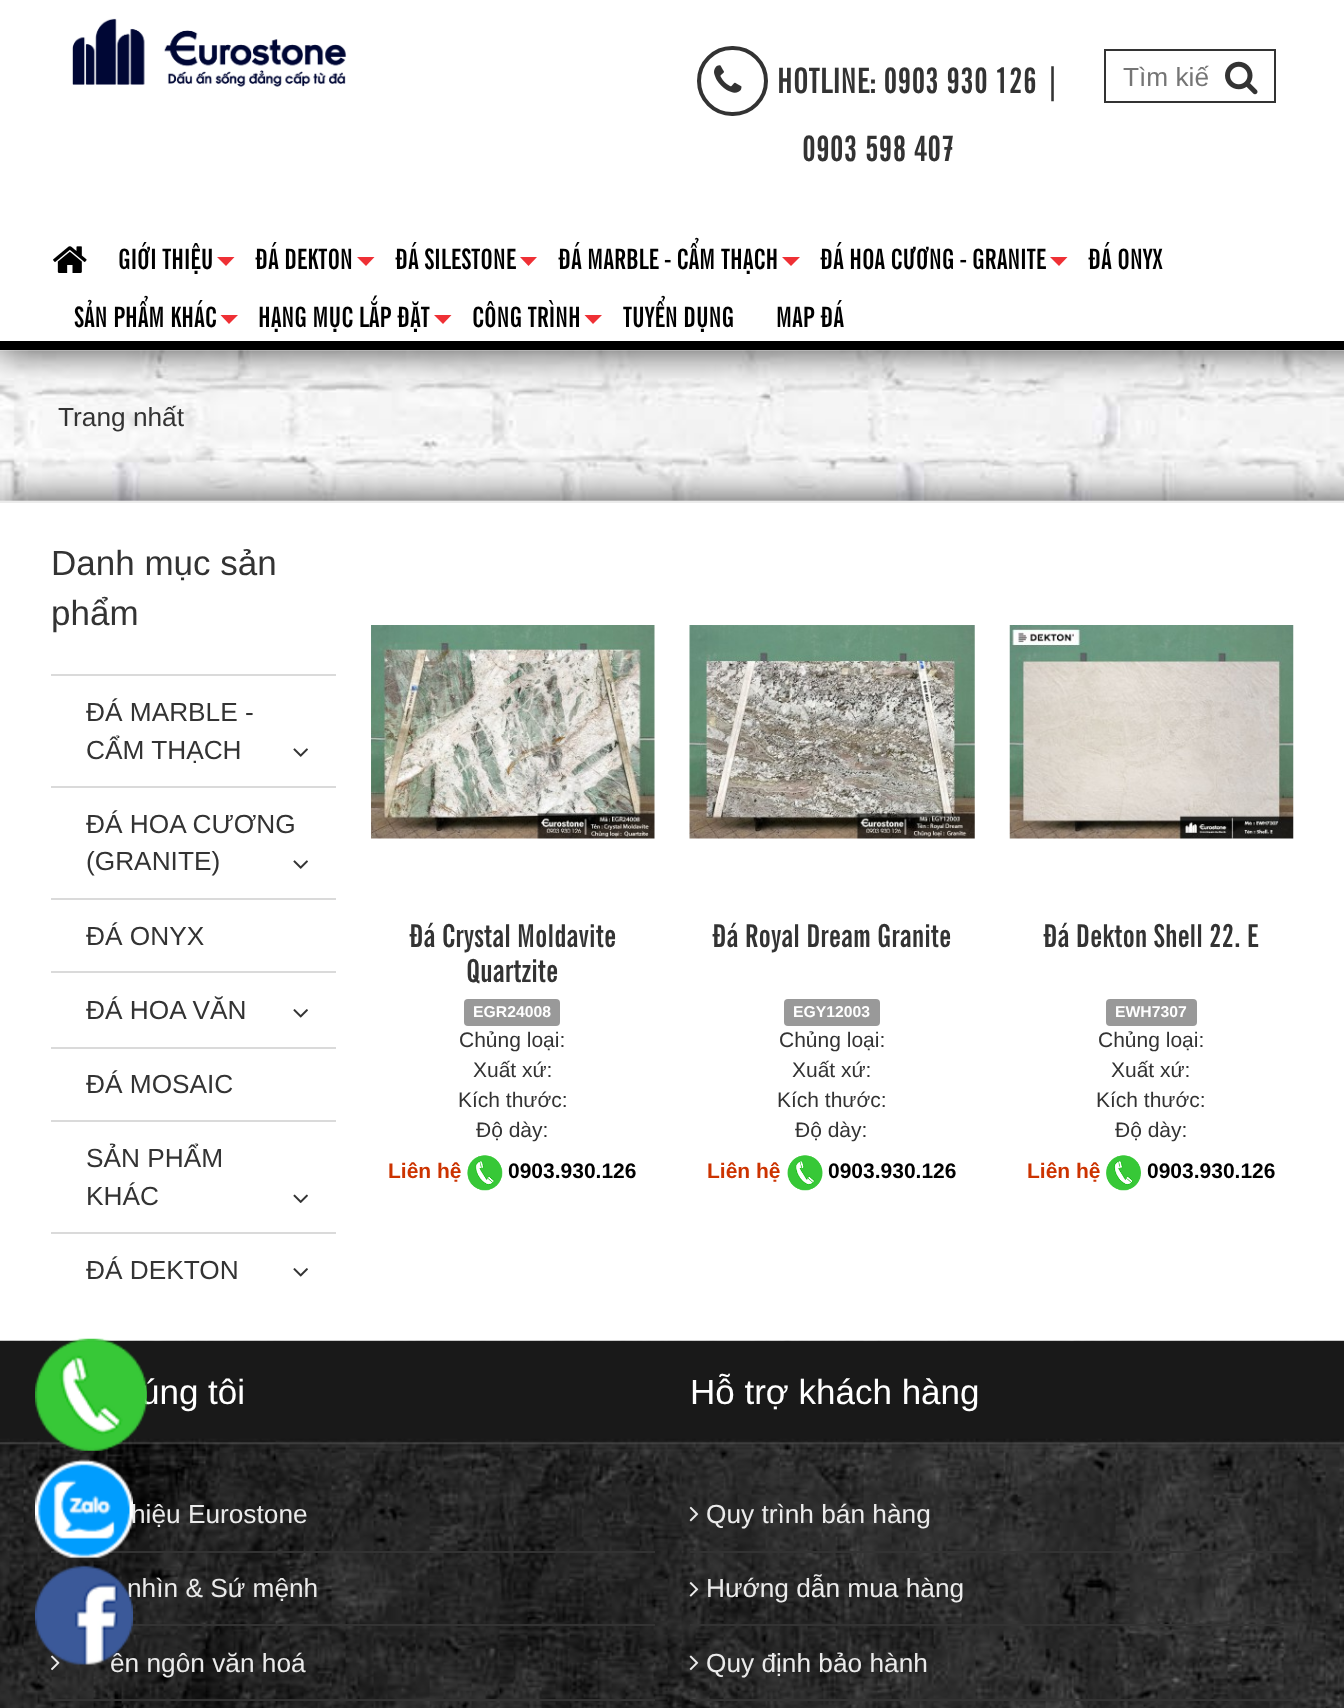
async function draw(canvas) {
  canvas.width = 1344;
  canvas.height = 1708;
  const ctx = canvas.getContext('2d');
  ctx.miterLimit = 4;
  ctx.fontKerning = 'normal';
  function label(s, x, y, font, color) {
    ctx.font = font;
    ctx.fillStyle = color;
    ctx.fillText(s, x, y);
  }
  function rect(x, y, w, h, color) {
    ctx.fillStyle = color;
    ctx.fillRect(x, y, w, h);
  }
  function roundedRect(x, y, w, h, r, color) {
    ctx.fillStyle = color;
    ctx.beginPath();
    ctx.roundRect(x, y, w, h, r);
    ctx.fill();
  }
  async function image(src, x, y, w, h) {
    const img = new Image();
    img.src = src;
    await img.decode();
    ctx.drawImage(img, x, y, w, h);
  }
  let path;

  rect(0, 0, 1344, 1708, '#fff');
  await image('assets/img1.png', 72, 18, 275, 69);
  ctx.beginPath();
  ctx.roundRect(699, 48, 67, 66, 33);
  ctx.strokeStyle = '#333';
  ctx.lineWidth = 4;
  ctx.stroke();
  await image('assets/img2.png', 714, 65, 28, 28);
  label('HOTLINE: 0903 930 126 |', 777, 93, 'bold 35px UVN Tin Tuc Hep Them', '#333');
  label('0903 598 407', 802, 161, 'bold 35px UVN Tin Tuc Hep Them', '#333');
  ctx.lineWidth = 2;
  ctx.strokeRect(1105, 50, 170, 52);
  label('Tìm kiế', 1123, 86, '26.25px Liberation Sans', '#757575');
  await image('assets/img3.png', 1225, 61, 33, 34);
  await image('assets/img4.png', 53, 246, 34, 27);
  label('GIỚI THIỆU', 118, 269, 'bold 28px UVN Tin Tuc Hep Them', '#000');
  ctx.fillStyle = '#ef3035';
  path = new Path2D('M217 257H234.5L226 266Z');
  ctx.fill(path);
  label('ĐÁ DEKTON', 255, 269, 'bold 28px UVN Tin Tuc Hep Them', '#000');
  ctx.fillStyle = '#ef3035';
  path = new Path2D('M357 257H374.5L366 266Z');
  ctx.fill(path);
  label('ĐÁ SILESTONE', 395, 269, 'bold 28px UVN Tin Tuc Hep Them', '#000');
  ctx.fillStyle = '#ef3035';
  path = new Path2D('M520 257H537L528.5 266Z');
  ctx.fill(path);
  label('ĐÁ MARBLE - CẨM THẠCH', 558, 269, 'bold 28px UVN Tin Tuc Hep Them', '#000');
  ctx.fillStyle = '#ef3035';
  path = new Path2D('M782 257H800L791 266Z');
  ctx.fill(path);
  label('ĐÁ HOA CƯƠNG - GRANITE', 820, 269, 'bold 28px UVN Tin Tuc Hep Them', '#000');
  ctx.fillStyle = '#ef3035';
  path = new Path2D('M1050 257H1067.5L1059 266Z');
  ctx.fill(path);
  label('ĐÁ ONYX', 1088, 269, 'bold 28px UVN Tin Tuc Hep Them', '#000');
  label('SẢN PHẨM KHÁC', 74, 327, 'bold 28px UVN Tin Tuc Hep Them', '#000');
  ctx.fillStyle = '#ef3035';
  path = new Path2D('M220.5 315H238L229 324Z');
  ctx.fill(path);
  label('HẠNG MỤC LẮP ĐẶT', 258, 327, 'bold 28px UVN Tin Tuc Hep Them', '#000');
  ctx.fillStyle = '#ef3035';
  path = new Path2D('M434 315H451.5L443 324Z');
  ctx.fill(path);
  label('CÔNG TRÌNH', 472, 327, 'bold 28px UVN Tin Tuc Hep Them', '#000');
  ctx.fillStyle = '#ef3035';
  path = new Path2D('M584.5 315H602L593 324Z');
  ctx.fill(path);
  label('TUYỂN DỤNG', 623, 327, 'bold 28px UVN Tin Tuc Hep Them', '#000');
  label('MAP ĐÁ', 776, 327, 'bold 28px UVN Tin Tuc Hep Them', '#000');
  rect(0, 341, 1344, 9, '#000');
  await image('assets/img5.png', 0, 350, 1344, 151);
  rect(0, 501, 1344, 2, '#ebebeb');
  label('Trang nhất', 58, 426, '26.25px Liberation Sans', '#333');
  label('Danh mục sản', 51, 575, '35px Liberation Sans', '#333');
  label('phẩm', 51, 625, '35px Liberation Sans', '#333');
  rect(51, 674, 285, 2, '#dadada');
  label('ĐÁ MARBLE -', 86, 721, '26.25px Liberation Sans', '#333');
  label('CẨM THẠCH', 86, 759, '26.25px Liberation Sans', '#333');
  await image('assets/img6.png', 293, 748, 15, 9);
  rect(51, 786, 285, 2, '#dadada');
  label('ĐÁ HOA CƯƠNG', 86, 833, '26.25px Liberation Sans', '#333');
  label('(GRANITE)', 86, 870, '26.25px Liberation Sans', '#333');
  await image('assets/img6.png', 293, 860, 15, 9);
  rect(51, 898, 285, 2, '#dadada');
  label('ĐÁ ONYX', 86, 945, '26.25px Liberation Sans', '#333');
  rect(51, 971, 285, 2, '#dadada');
  label('ĐÁ HOA VĂN', 86, 1019, '26.25px Liberation Sans', '#333');
  await image('assets/img7.png', 293, 1009, 15, 9);
  rect(51, 1047, 285, 2, '#dadada');
  label('ĐÁ MOSAIC', 86, 1093, '26.25px Liberation Sans', '#333');
  rect(51, 1120, 285, 2, '#dadada');
  label('SẢN PHẨM', 86, 1167, '26.25px Liberation Sans', '#333');
  label('KHÁC', 86, 1205, '26.25px Liberation Sans', '#333');
  await image('assets/img8.png', 293, 1194, 15, 9);
  rect(51, 1232, 285, 2, '#dadada');
  label('ĐÁ DEKTON', 86, 1279, '26.25px Liberation Sans', '#333');
  await image('assets/img7.png', 293, 1268, 15, 9);
  await image('assets/img9.png', 371, 625, 284, 214);
  label('Đá Crystal Moldavite', 409, 947, 'bold 31.5px UVN Tin Tuc Hep Them', '#333');
  label('Quartzite', 466, 982, 'bold 31.5px UVN Tin Tuc Hep Them', '#333');
  roundedRect(464, 999, 96, 27, 4, '#999');
  label('EGR24008', 473, 1017, 'bold 15.75px Liberation Sans', '#fff');
  label('Chủng loại:', 459, 1047, '21px Liberation Sans', '#333');
  label('Xuất xứ:', 473, 1077, '21px Liberation Sans', '#333');
  label('Kích thước:', 458, 1107, '21px Liberation Sans', '#333');
  label('Độ dày:', 476, 1137, '21px Liberation Sans', '#333');
  label('Liên hệ', 388, 1178, 'bold 21px Liberation Sans', '#c30');
  await image('assets/img10.png', 467, 1155, 36, 36);
  label('0903.930.126', 508, 1178, 'bold 21px Liberation Sans', '#000');
  await image('assets/img11.png', 689, 625, 286, 214);
  label('Đá Royal Dream Granite', 712, 947, 'bold 31.5px UVN Tin Tuc Hep Them', '#333');
  roundedRect(784, 999, 96, 27, 4, '#999');
  label('EGY12003', 793, 1017, 'bold 15.75px Liberation Sans', '#fff');
  label('Chủng loại:', 779, 1047, '21px Liberation Sans', '#333');
  label('Xuất xứ:', 792, 1077, '21px Liberation Sans', '#333');
  label('Kích thước:', 777, 1107, '21px Liberation Sans', '#333');
  label('Độ dày:', 795, 1137, '21px Liberation Sans', '#333');
  label('Liên hệ', 707, 1178, 'bold 21px Liberation Sans', '#c30');
  await image('assets/img12.png', 787, 1155, 36, 36);
  label('0903.930.126', 828, 1178, 'bold 21px Liberation Sans', '#000');
  await image('assets/img13.png', 1009, 625, 285, 214);
  label('Đá Dekton Shell 22. E', 1043, 947, 'bold 31.5px UVN Tin Tuc Hep Them', '#333');
  roundedRect(1106, 999, 91, 27, 4, '#999');
  label('EWH7307', 1115, 1017, 'bold 15.75px Liberation Sans', '#fff');
  label('Chủng loại:', 1098, 1047, '21px Liberation Sans', '#333');
  label('Xuất xứ:', 1111, 1077, '21px Liberation Sans', '#333');
  label('Kích thước:', 1096, 1107, '21px Liberation Sans', '#333');
  label('Độ dày:', 1115, 1137, '21px Liberation Sans', '#333');
  label('Liên hệ', 1027, 1178, 'bold 21px Liberation Sans', '#c30');
  await image('assets/img14.png', 1106, 1155, 35, 36);
  label('0903.930.126', 1147, 1178, 'bold 21px Liberation Sans', '#000');
  await image('assets/img18.png', 0, 1340, 1344, 368);
  label('úng tôi', 140, 1404, '35px Liberation Sans', '#fff');
  await image('assets/img15.png', 35, 1338, 112, 113);
  rect(51, 1551, 604, 2, '#333');
  await image('assets/img16.png', 35, 1459, 98, 99);
  rect(130, 1624, 525, 2, '#333');
  await image('assets/img19.png', 51, 1582, 1, 1);
  label('nhìn & Sứ mệnh', 127, 1597, '26.25px Liberation Sans', '#ebebeb');
  await image('assets/img20.png', 51, 1655, 9, 16);
  label('ên ngôn văn hoá', 110, 1672, '26.25px Liberation Sans', '#ebebeb');
  await image('assets/img17.png', 35, 1565, 98, 100);
  label('hiệu Eurostone', 131, 1523, '26.25px Liberation Sans', '#ebebeb');
  rect(51, 1699, 604, 2, '#333');
  label('Hỗ trợ khách hàng', 690, 1404, '35px Liberation Sans', '#fff');
  rect(690, 1551, 603, 2, '#333');
  await image('assets/img21.png', 689, 1506, 10, 16);
  label('Quy trình bán hàng', 706, 1523, '26.25px Liberation Sans', '#ebebeb');
  rect(690, 1624, 603, 2, '#333');
  await image('assets/img22.png', 689, 1582, 10, 15);
  label('Hướng dẫn mua hàng', 706, 1597, '26.25px Liberation Sans', '#ebebeb');
  rect(690, 1699, 603, 2, '#333');
  await image('assets/img23.png', 689, 1655, 10, 16);
  label('Quy định bảo hành', 706, 1672, '26.25px Liberation Sans', '#ebebeb');
}

draw(document.querySelector('canvas'));
